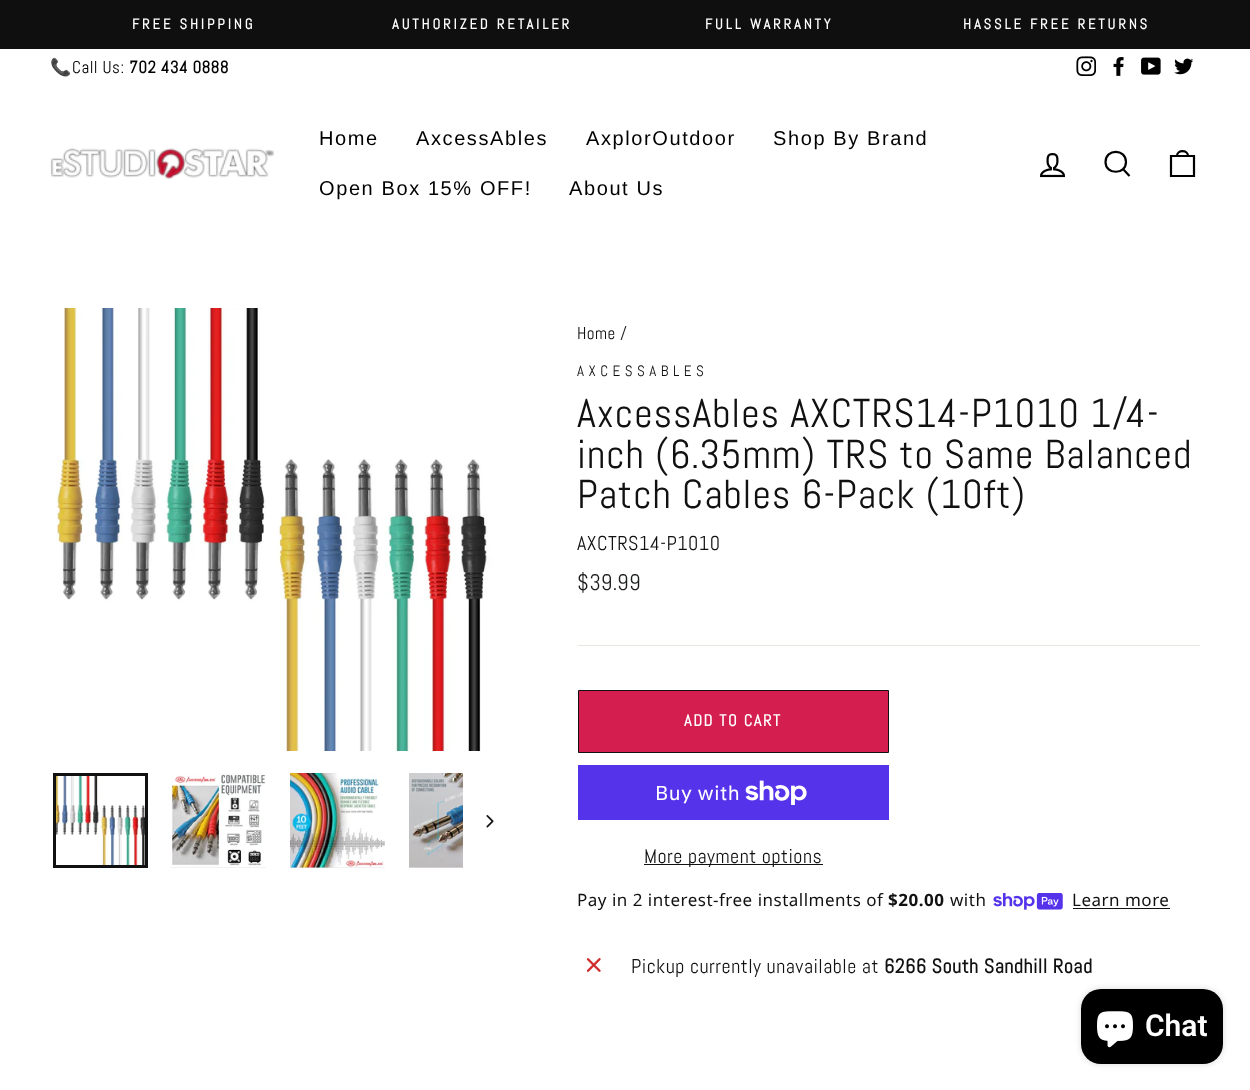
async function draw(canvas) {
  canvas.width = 1250;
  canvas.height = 1090;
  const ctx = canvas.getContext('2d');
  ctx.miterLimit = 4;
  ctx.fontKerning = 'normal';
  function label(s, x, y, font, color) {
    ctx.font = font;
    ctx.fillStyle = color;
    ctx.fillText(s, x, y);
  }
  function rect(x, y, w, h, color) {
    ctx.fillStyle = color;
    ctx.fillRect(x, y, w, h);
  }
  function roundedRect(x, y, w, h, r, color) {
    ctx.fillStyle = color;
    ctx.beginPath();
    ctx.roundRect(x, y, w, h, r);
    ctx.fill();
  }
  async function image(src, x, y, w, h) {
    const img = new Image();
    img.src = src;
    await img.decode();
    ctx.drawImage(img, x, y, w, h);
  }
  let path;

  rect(0, 0, 1250, 1090, '#fff');
  rect(0, 0, 1250, 49, '#0f0f0f');
  ctx.letterSpacing = '2.9px';
  label('FREE SHIPPING', 132, 29, 'bold 14.5px Abel', '#fff');
  label('AUTHORIZED RETAILER', 392, 29, 'bold 14.5px Abel', '#fff');
  label('FULL WARRANTY', 705, 29, 'bold 14.5px Abel', '#fff');
  label('HASSLE FREE RETURNS', 963, 29, 'bold 14.5px Abel', '#fff');
  ctx.letterSpacing = '0.5px';
  label('📞', 50, 73, '17px Noto Color Emoji', '#000');
  label('Call Us:', 72, 73, '17px Abel', '#000');
  label('702 434 0888', 129, 73, 'bold 17px Abel', '#000');
  await image('assets/img1.png', 1076, 56, 20, 20);
  await image('assets/img2.png', 1113, 57, 11, 19);
  await image('assets/img3.png', 1141, 57, 20, 18);
  await image('assets/img4.png', 1174, 58, 20, 17);
  ctx.fillStyle = '#00000033';
  ctx.filter = 'blur(0.5px)';
  ctx.beginPath();
  ctx.rect(0, 88, 1250, 151);
  ctx.fill();
  ctx.filter = 'none';
  rect(0, 88, 1250, 151, '#fff');
  await image('assets/img5.png', 50, 148, 224, 31);
  ctx.letterSpacing = '1.6px';
  label('Home', 319, 145, '20px Liberation Sans', '#000');
  label('AxcessAbles', 416, 145, '20px Liberation Sans', '#000');
  label('AxplorOutdoor', 586, 145, '20px Liberation Sans', '#000');
  label('Shop By Brand', 773, 145, '20px Liberation Sans', '#000');
  label('Open Box 15% OFF!', 319, 195, '20px Liberation Sans', '#000');
  label('About Us', 569, 195, '20px Liberation Sans', '#000');
  await image('assets/img6.png', 1039, 153, 27, 25);
  path = new Path2D('M1126 162C1126 175 1105.5 175 1105.5 162C1105.5 148.5 1126 148.5 1126 162ZM1129.5 176L1123 169');
  ctx.strokeStyle = '#000';
  ctx.lineWidth = 2.2;
  ctx.stroke(path);
  path = new Path2D('M1171 156H1194V176H1171ZM1177 156C1177 149.5 1188 149.5 1188 156');
  ctx.stroke(path);
  await image('assets/img7.png', 50, 308, 444, 443);
  await image('assets/img8.png', 56, 776, 89, 89);
  ctx.strokeStyle = '#111';
  ctx.lineWidth = 3;
  ctx.strokeRect(54.5, 774.5, 92, 92);
  rect(171, 867, 95, 1, '#e5e5e5');
  await image('assets/img9.png', 171, 773, 95, 95);
  rect(290, 867, 95, 1, '#e5e5e5');
  await image('assets/img10.png', 290, 773, 95, 95);
  rect(409, 867, 54, 1, '#e5e5e5');
  await image('assets/img11.png', 409, 773, 54, 95);
  await image('assets/img12.png', 486, 815, 8, 13);
  ctx.letterSpacing = '0.5px';
  label('Home /', 577, 339, '17px Abel', '#111');
  ctx.letterSpacing = '4.5px';
  label('AXCESSABLES', 577, 376, '15px Abel', '#111');
  ctx.letterSpacing = '1px';
  label('AxcessAbles AXCTRS14-P1010 1/4-', 577, 427, '40.4px Abel', '#111');
  label('inch (6.35mm) TRS to Same Balanced', 577, 468, '40.4px Abel', '#111');
  label('Patch Cables 6-Pack (10ft)', 577, 508, '40.4px Abel', '#111');
  ctx.letterSpacing = '0.5px';
  label('AXCTRS14-P1010', 577, 550, '20px Abel', '#111');
  label('$39.99', 577, 590, '22.5px Abel', '#1c1d1d');
  rect(578, 645, 622, 1, '#e8e8e1');
  ctx.fillStyle = '#d31e4f';
  ctx.beginPath();
  ctx.rect(578.5, 690.5, 310, 62);
  ctx.fill();
  ctx.lineWidth = 1;
  ctx.stroke();
  ctx.letterSpacing = '1.6px';
  label('ADD TO CART', 684, 726, 'bold 16.25px Abel', '#fff');
  rect(578, 765, 311, 55, '#5433eb');
  ctx.letterSpacing = '0.5px';
  label('Buy with', 655, 800, '20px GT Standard', '#fff');
  await image('assets/img13.png', 745, 780, 62, 25);
  rect(644, 864, 179, 1, '#111');
  label('More payment options', 644, 863, '20px Abel', '#111');
  label('Pay in 2 interest-free installments of', 577, 906, '17px Noto Sans', '#111');
  label('$20.00', 888, 906, 'bold 17px Noto Sans', '#111');
  label('with', 950, 906, '17px Noto Sans', '#111');
  await image('assets/img14.png', 993, 893, 70, 17);
  label('Learn more', 1072, 906, '17px Noto Sans', '#111');
  rect(1073, 908, 97, 1, '#111');
  await image('assets/img15.png', 586, 958, 15, 14);
  label('Pickup currently unavailable at', 631, 973, '20px Abel', '#111');
  label('6266 South Sandhill Road', 884, 973, 'bold 20px Abel', '#111');
  ctx.fillStyle = '#00000026';
  ctx.filter = 'blur(3px)';
  ctx.beginPath();
  ctx.roundRect(1081, 989, 142, 75, 20);
  ctx.fill();
  ctx.filter = 'none';
  roundedRect(1081, 989, 142, 75, 20, '#000');
  await image('assets/img16.png', 1097, 1011, 36, 37);
  ctx.letterSpacing = '0px';
  label('Chat', 1145, 1036, '600 30px Roboto', '#fff');
}

draw(document.querySelector('canvas'));
